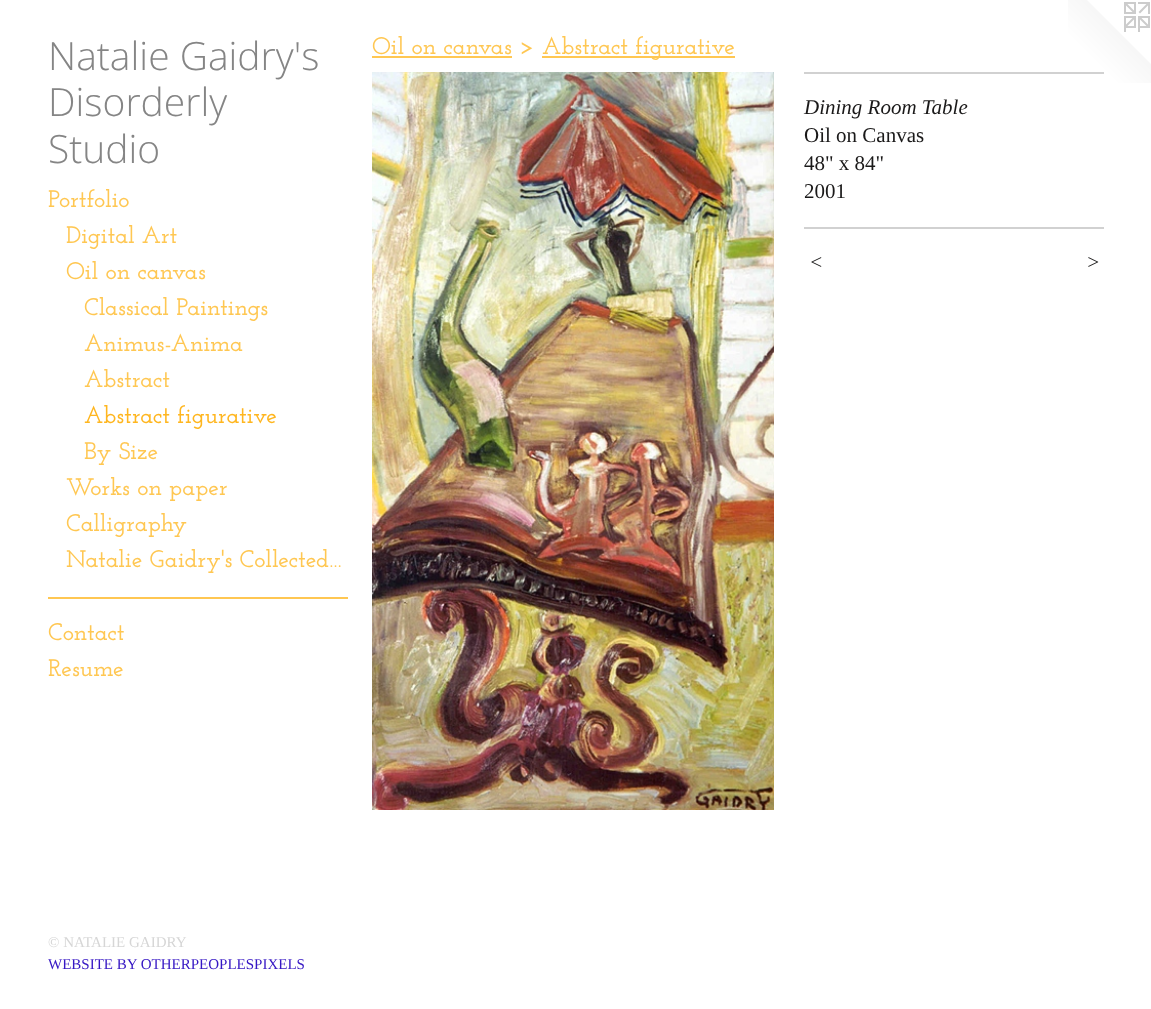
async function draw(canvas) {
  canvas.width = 1151;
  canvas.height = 1009;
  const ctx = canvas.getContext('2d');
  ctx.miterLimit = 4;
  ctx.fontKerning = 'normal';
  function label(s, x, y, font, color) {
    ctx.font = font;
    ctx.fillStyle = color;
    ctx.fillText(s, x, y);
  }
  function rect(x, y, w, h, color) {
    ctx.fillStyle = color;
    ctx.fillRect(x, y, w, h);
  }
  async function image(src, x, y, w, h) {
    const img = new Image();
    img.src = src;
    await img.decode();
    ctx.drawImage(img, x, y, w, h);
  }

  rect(0, 0, 1151, 1009, '#fff');
  label('Natalie Gaidry\'s', 48, 70, '300 39px Open Sans', '#858585');
  label('Disorderly', 48, 116, '300 39px Open Sans', '#858585');
  label('Studio', 48, 163, '300 39px Open Sans', '#858585');
  label('Portfolio', 48, 207, '100 24px Josefin Slab', '#ffc752');
  label('Digital Art', 66, 243, '100 24px Josefin Slab', '#ffc752');
  label('Oil on canvas', 66, 279, '100 24px Josefin Slab', '#ffc752');
  label('Classical Paintings', 84, 315, '100 24px Josefin Slab', '#ffc752');
  label('Animus-Anima', 84, 351, '100 24px Josefin Slab', '#ffc752');
  label('Abstract', 84, 387, '100 24px Josefin Slab', '#ffc752');
  label('Abstract figurative', 84, 423, '100 24px Josefin Slab', '#ffb61f');
  label('By Size', 84, 459, '100 24px Josefin Slab', '#ffc752');
  label('Works on paper', 66, 495, '100 24px Josefin Slab', '#ffc752');
  label('Calligraphy', 66, 531, '100 24px Josefin Slab', '#ffc752');
  label('Natalie Gaidry\'s Collected…', 66, 567, '100 24px Josefin Slab', '#ffc752');
  rect(48, 597, 300, 2, '#ffc752');
  label('Contact', 48, 640, '100 24px Josefin Slab', '#ffc752');
  label('Resume', 48, 676, '100 24px Josefin Slab', '#ffc752');
  label('© NATALIE GAIDRY', 48, 947, '15px Liberation Serif', '#d6d6d6');
  label('WEBSITE BY OTHERPEOPLESPIXELS', 48, 969, '15px Liberation Serif', '#3617c4');
  label('Oil on canvas >', 372, 54, '100 24px Josefin Slab', '#ffc752');
  rect(372, 56, 140, 2, '#ffc752');
  rect(542, 56, 193, 2, '#ffc752');
  label('Abstract figurative', 542, 54, '100 24px Josefin Slab', '#ffc752');
  await image('assets/img1.png', 372, 72, 402, 738);
  await image('assets/img2.png', 1068, 0, 83, 83);
  rect(804, 72, 300, 2, '#d1d1d1');
  label('Dining Room Table', 804, 114, 'italic 21px Liberation Serif', '#1a1919');
  label('Oil on Canvas', 804, 142, '21px Liberation Serif', '#1a1919');
  label('48" x 84"', 804, 170, '21px Liberation Serif', '#1a1919');
  label('2001', 804, 198, '21px Liberation Serif', '#1a1919');
  rect(804, 227, 300, 2, '#d1d1d1');
  ctx.letterSpacing = '2px';
  label('<', 809, 269, 'italic 21px Liberation Serif', '#1a1919');
  label('>', 1086, 269, 'italic 21px Liberation Serif', '#1a1919');
}

draw(document.querySelector('canvas'));
